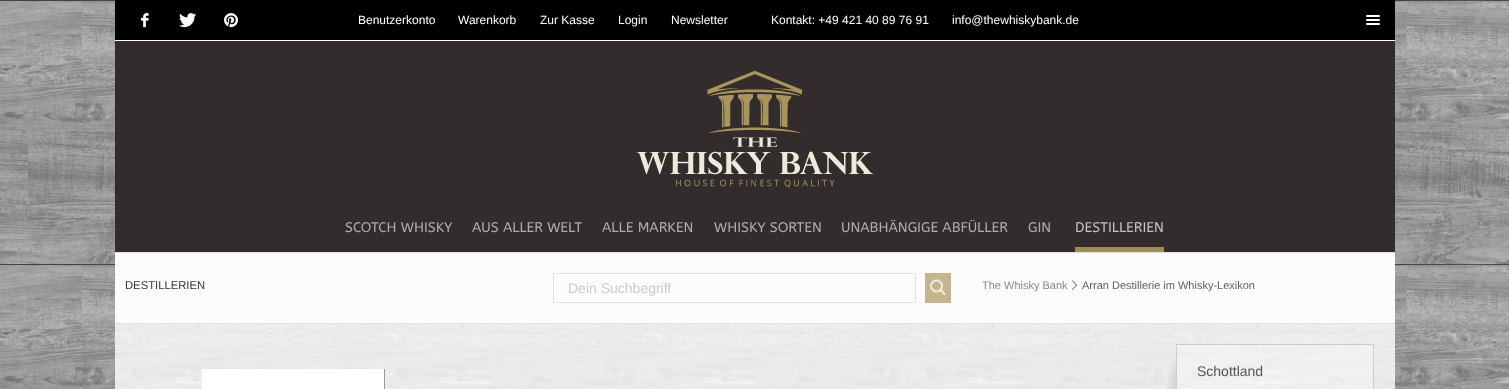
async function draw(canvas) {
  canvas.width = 1509;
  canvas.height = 389;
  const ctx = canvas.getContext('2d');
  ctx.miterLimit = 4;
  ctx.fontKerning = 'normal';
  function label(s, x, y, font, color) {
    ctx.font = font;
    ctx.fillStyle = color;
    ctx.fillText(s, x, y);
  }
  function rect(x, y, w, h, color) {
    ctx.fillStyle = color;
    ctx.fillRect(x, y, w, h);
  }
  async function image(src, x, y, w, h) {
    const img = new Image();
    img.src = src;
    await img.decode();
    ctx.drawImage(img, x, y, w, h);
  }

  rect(0, 0, 1509, 389, '#f1f1f1');
  await image('assets/img1.png', 0, 0, 1509, 389);
  rect(115, 0, 1280, 40, '#000');
  rect(115, 40, 1280, 1, '#fff');
  await image('assets/img2.png', 141, 13, 8, 15);
  await image('assets/img3.png', 179, 13, 17, 15);
  await image('assets/img4.png', 224, 13, 14, 15);
  label('Benutzerkonto', 358, 24, '12px Liberation Sans', '#fff');
  label('Warenkorb', 458, 24, '12px Liberation Sans', '#fff');
  label('Zur Kasse', 540, 24, '12px Liberation Sans', '#fff');
  label('Login', 618, 24, '12px Liberation Sans', '#fff');
  label('Newsletter', 671, 24, '12px Liberation Sans', '#fff');
  label('Kontakt: +49 421 40 89 76 91', 771, 24, '12px Liberation Sans', '#fff');
  label('info@thewhiskybank.de', 952, 24, '12px Liberation Sans', '#fff');
  await image('assets/img5.png', 1366, 15, 14, 10);
  rect(115, 41, 1280, 211, '#322c2c');
  await image('assets/img6.png', 636, 70, 237, 118);
  label('SCOTCH WHISKY', 345, 232, '14px ABeeZee', '#adabab');
  label('AUS ALLER WELT', 472, 232, '14px ABeeZee', '#adabab');
  label('ALLE MARKEN', 602, 232, '14px ABeeZee', '#adabab');
  label('WHISKY SORTEN', 714, 232, '14px ABeeZee', '#adabab');
  label('UNABHÄNGIGE ABFÜLLER', 841, 232, '14px ABeeZee', '#adabab');
  label('GIN', 1028, 232, '14px ABeeZee', '#adabab');
  label('DESTILLERIEN', 1075, 232, '14px ABeeZee', '#c2c0c0');
  rect(1075, 247, 89, 5, '#a08b58');
  rect(115, 253, 1280, 70, '#fcfcfc');
  rect(115, 252, 1280, 1, '#e1e1e1');
  rect(115, 323, 1280, 1, '#e1e1e1');
  label('DESTILLERIEN', 125, 289, '11.25px Liberation Sans', '#333');
  ctx.strokeStyle = '#e1e1e1';
  ctx.strokeRect(553.5, 273.5, 362, 29);
  label('Dein Suchbegriff', 568, 293, '14px Liberation Sans', '#ccc');
  rect(925, 273, 26, 30, '#c4b58d');
  await image('assets/img7.png', 930, 279, 16, 17);
  label('The Whisky Bank', 982, 289, '11px Liberation Sans', '#888');
  await image('assets/img8.png', 1072, 280, 5, 10);
  label('Arran Destillerie im Whisky-Lexikon', 1082, 289, '11px Liberation Sans', '#5e5e5e');
  rect(115, 324, 1280, 65, '#ffffffcc');
  rect(202, 369, 182, 20, '#fff');
  rect(384, 369, 1, 20, '#999');
  ctx.save();
  ctx.beginPath();
  ctx.rect(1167, 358, 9, 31);
  ctx.clip();
  ctx.fillStyle = '#00000033';
  ctx.filter = 'blur(8px)';
  ctx.beginPath();
  ctx.rect(1177, 364, 158, 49);
  ctx.fill();
  ctx.filter = 'none';
  ctx.restore();
  ctx.fillStyle = '#ffffff4d';
  ctx.beginPath();
  ctx.rect(1176.5, 344.5, 197, 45);
  ctx.fill();
  ctx.strokeStyle = '#ccc';
  ctx.stroke();
  label('Schottland', 1197, 376, '14px Liberation Sans', '#555');
}

draw(document.querySelector('canvas'));
